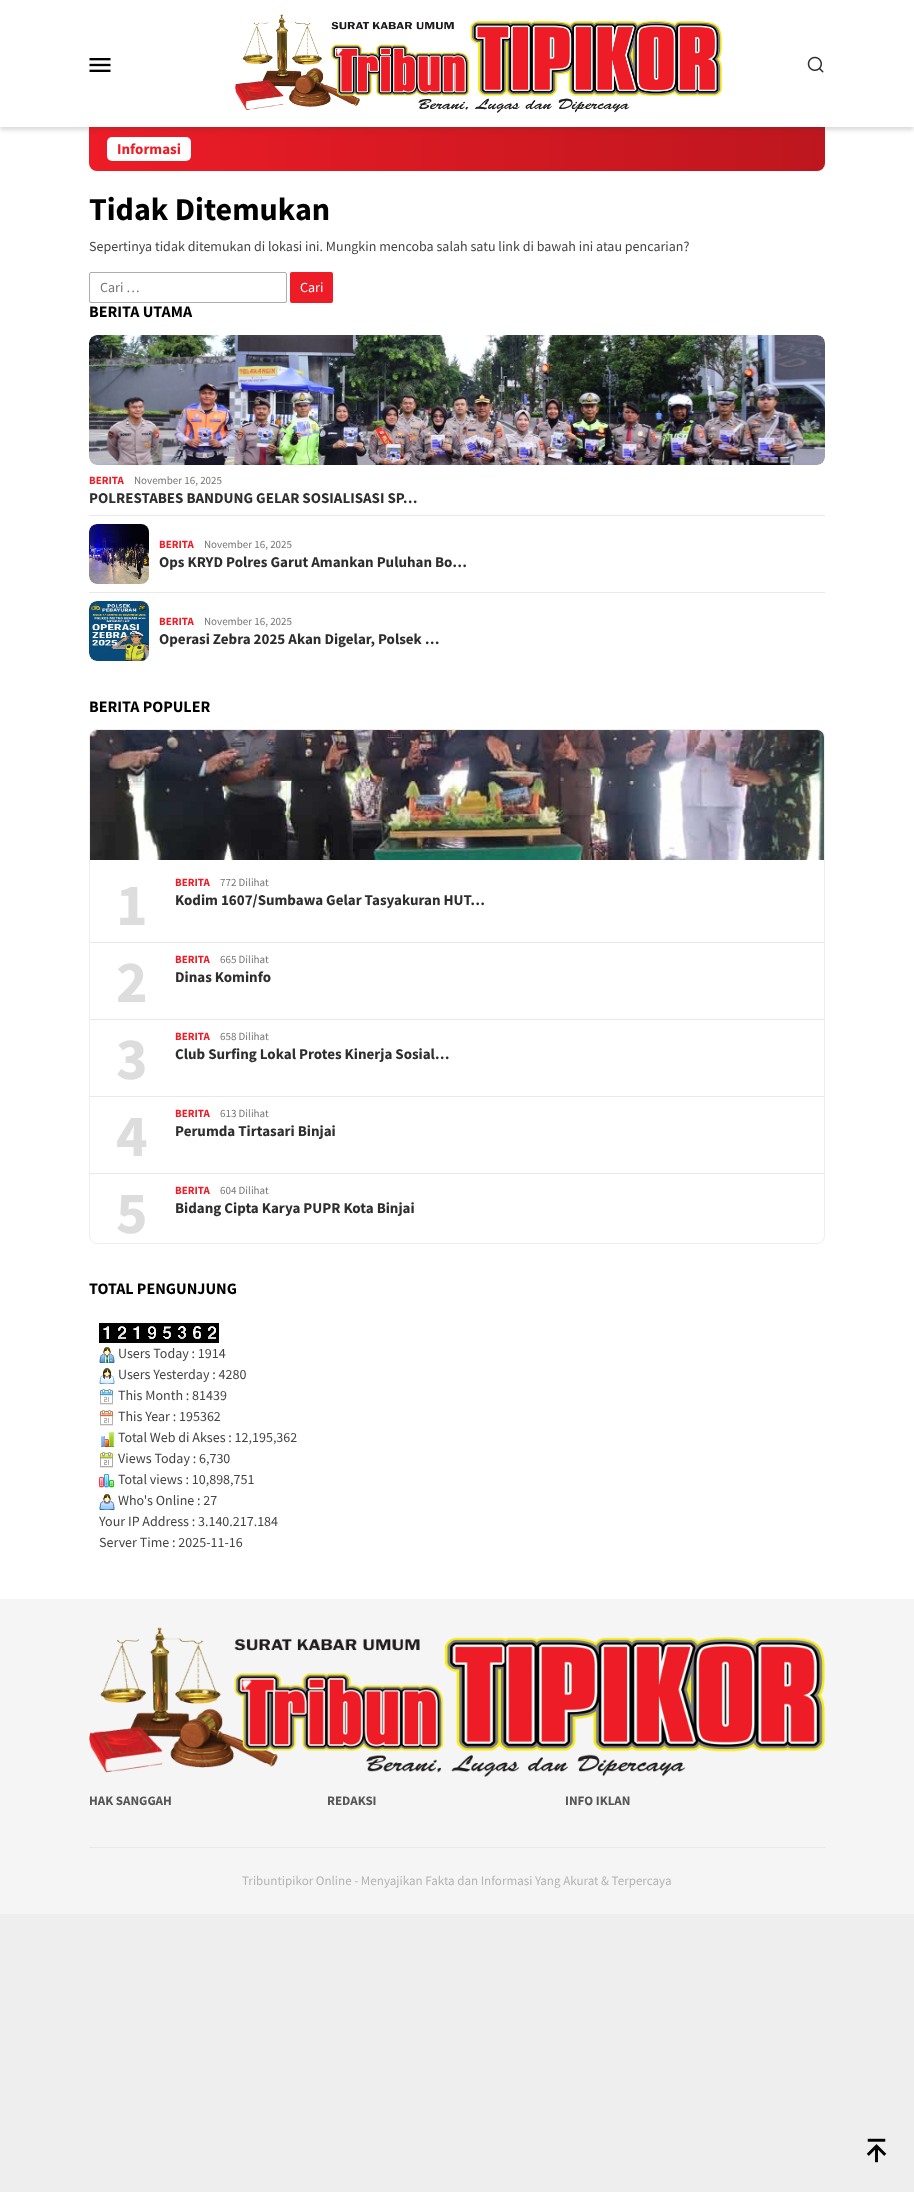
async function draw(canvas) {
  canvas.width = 914;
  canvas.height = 2192;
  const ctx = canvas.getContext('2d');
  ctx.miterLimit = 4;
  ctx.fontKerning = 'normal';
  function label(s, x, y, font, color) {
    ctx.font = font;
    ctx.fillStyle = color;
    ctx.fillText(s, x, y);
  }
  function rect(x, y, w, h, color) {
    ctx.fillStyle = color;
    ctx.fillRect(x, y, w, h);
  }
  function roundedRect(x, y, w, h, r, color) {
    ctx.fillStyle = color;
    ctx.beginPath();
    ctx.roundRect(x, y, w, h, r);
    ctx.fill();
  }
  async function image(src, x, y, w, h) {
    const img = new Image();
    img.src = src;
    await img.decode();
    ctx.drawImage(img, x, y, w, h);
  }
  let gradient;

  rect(0, 0, 914, 2192, '#eee');
  rect(0, 127, 914, 1472, '#fff');
  ctx.fillStyle = '#ed1c26';
  ctx.beginPath();
  ctx.roundRect(89, 127, 736, 44, [0, 0, 8, 8]);
  ctx.fill();
  gradient = ctx.createLinearGradient(89, 149, 825, 149);
  gradient.addColorStop(0, '#00000000');
  gradient.addColorStop(1, '#00000033');
  ctx.fillStyle = gradient;
  ctx.beginPath();
  ctx.roundRect(89, 127, 736, 44, [0, 0, 8, 8]);
  ctx.fill();
  ctx.fillStyle = '#3434342e';
  ctx.filter = 'blur(2px)';
  ctx.beginPath();
  ctx.rect(0, 3, 914, 127);
  ctx.fill();
  ctx.filter = 'none';
  rect(0, 0, 914, 127, '#fff');
  await image('assets/img1.png', 89, 58, 22, 14);
  await image('assets/img2.png', 235, 14, 487, 99);
  await image('assets/img3.png', 807, 56, 17, 17);
  roundedRect(107, 137, 84, 24, 5, '#fff');
  label('Informasi', 117, 154, 'bold 15px Source Sans Pro', '#ed1c26');
  label('Tidak Ditemukan', 89, 220, 'bold 32px Source Sans Pro', '#000');
  label('Sepertinya tidak ditemukan di lokasi ini. Mungkin mencoba salah satu link di bawah ini atau pencarian?', 89, 251, '14px Source Sans Pro', '#444');
  ctx.beginPath();
  ctx.roundRect(89.5, 272.5, 197, 30, 1.5);
  ctx.strokeStyle = '#adadad';
  ctx.stroke();
  label('Cari …', 100, 292, '14px Source Sans Pro', '#757575');
  roundedRect(290, 272, 43, 31, 2, '#ed1c26');
  label('Cari', 300, 292, '14px Source Sans Pro', '#fff');
  label('BERITA UTAMA', 89, 317, 'bold 16px Source Sans Pro', '#000');
  rect(89, 515, 736, 1, '#e9e9e9');
  await image('assets/img4.png', 89, 335, 736, 130);
  label('BERITA', 89, 484, 'bold 11px Source Sans Pro', '#ed1c26');
  label('November 16, 2025', 134, 484, '11px Source Sans Pro', '#757575');
  label('POLRESTABES BANDUNG GELAR SOSIALISASI SP…', 89, 503, 'bold 15px Source Sans Pro', '#2e2e2e');
  rect(89, 592, 736, 1, '#e9e9e9');
  await image('assets/img5.png', 89, 524, 60, 60);
  label('BERITA', 159, 548, 'bold 11px Source Sans Pro', '#ed1c26');
  label('November 16, 2025', 204, 548, '11px Source Sans Pro', '#757575');
  label('Ops KRYD Polres Garut Amankan Puluhan Bo…', 159, 567, 'bold 15px Source Sans Pro', '#2e2e2e');
  await image('assets/img6.png', 89, 601, 60, 60);
  label('BERITA', 159, 625, 'bold 11px Source Sans Pro', '#ed1c26');
  label('November 16, 2025', 204, 625, '11px Source Sans Pro', '#757575');
  label('Operasi Zebra 2025 Akan Digelar, Polsek …', 159, 644, 'bold 15px Source Sans Pro', '#2e2e2e');
  label('BERITA POPULER', 89, 712, 'bold 16px Source Sans Pro', '#000');
  ctx.beginPath();
  ctx.roundRect(89.5, 729.5, 735, 514, 7.5);
  ctx.strokeStyle = '#eee';
  ctx.stroke();
  rect(90, 942, 734, 1, '#e9e9e9');
  await image('assets/img7.png', 90, 730, 734, 130);
  ctx.letterSpacing = '-4px';
  label('1', 116, 925, 'bold 60px Source Sans Pro', '#ddd');
  ctx.letterSpacing = '0px';
  label('BERITA', 175, 886, 'bold 11px Source Sans Pro', '#ed1c26');
  label('772 Dilihat', 220, 886, '11px Source Sans Pro', '#757575');
  label('Kodim 1607/Sumbawa Gelar Tasyakuran HUT…', 175, 905, 'bold 15px Source Sans Pro', '#2e2e2e');
  rect(90, 1019, 734, 1, '#e9e9e9');
  ctx.letterSpacing = '-4px';
  label('2', 116, 1002, 'bold 60px Source Sans Pro', '#ddd');
  ctx.letterSpacing = '0px';
  label('BERITA', 175, 963, 'bold 11px Source Sans Pro', '#ed1c26');
  label('665 Dilihat', 220, 963, '11px Source Sans Pro', '#757575');
  label('Dinas Kominfo', 175, 982, 'bold 15px Source Sans Pro', '#2e2e2e');
  rect(90, 1096, 734, 1, '#e9e9e9');
  ctx.letterSpacing = '-4px';
  label('3', 116, 1079, 'bold 60px Source Sans Pro', '#ddd');
  ctx.letterSpacing = '0px';
  label('BERITA', 175, 1040, 'bold 11px Source Sans Pro', '#ed1c26');
  label('658 Dilihat', 220, 1040, '11px Source Sans Pro', '#757575');
  label('Club Surfing Lokal Protes Kinerja Sosial…', 175, 1059, 'bold 15px Source Sans Pro', '#2e2e2e');
  rect(90, 1173, 734, 1, '#e9e9e9');
  ctx.letterSpacing = '-4px';
  label('4', 116, 1156, 'bold 60px Source Sans Pro', '#ddd');
  ctx.letterSpacing = '0px';
  label('BERITA', 175, 1117, 'bold 11px Source Sans Pro', '#ed1c26');
  label('613 Dilihat', 220, 1117, '11px Source Sans Pro', '#757575');
  label('Perumda Tirtasari Binjai', 175, 1136, 'bold 15px Source Sans Pro', '#2e2e2e');
  ctx.letterSpacing = '-4px';
  label('5', 116, 1233, 'bold 60px Source Sans Pro', '#ddd');
  ctx.letterSpacing = '0px';
  label('BERITA', 175, 1194, 'bold 11px Source Sans Pro', '#ed1c26');
  label('604 Dilihat', 220, 1194, '11px Source Sans Pro', '#757575');
  label('Bidang Cipta Karya PUPR Kota Binjai', 175, 1213, 'bold 15px Source Sans Pro', '#2e2e2e');
  label('TOTAL PENGUNJUNG', 89, 1294, 'bold 16px Source Sans Pro', '#000');
  await image('assets/img8.png', 99, 1323, 15, 20);
  await image('assets/img9.png', 114, 1323, 15, 20);
  await image('assets/img8.png', 129, 1323, 15, 20);
  await image('assets/img10.png', 144, 1323, 15, 20);
  await image('assets/img11.png', 159, 1323, 15, 20);
  await image('assets/img12.png', 174, 1323, 15, 20);
  await image('assets/img13.png', 189, 1323, 15, 20);
  await image('assets/img9.png', 204, 1323, 15, 20);
  await image('assets/img14.png', 99, 1347, 16, 16);
  label('Users Today : 1914', 118, 1358, '14px Source Sans Pro', '#444');
  await image('assets/img15.png', 99, 1368, 16, 16);
  label('Users Yesterday : 4280', 118, 1379, '14px Source Sans Pro', '#444');
  await image('assets/img16.png', 100, 1389, 13, 16);
  label('This Month : 81439', 118, 1400, '14px Source Sans Pro', '#444');
  await image('assets/img17.png', 100, 1410, 13, 16);
  label('This Year : 195362', 118, 1421, '14px Source Sans Pro', '#444');
  await image('assets/img18.png', 101, 1432, 13, 15);
  label('Total Web di Akses : 12,195,362', 118, 1442, '14px Source Sans Pro', '#444');
  await image('assets/img19.png', 100, 1452, 13, 16);
  label('Views Today : 6,730', 118, 1463, '14px Source Sans Pro', '#444');
  await image('assets/img20.png', 99, 1474, 15, 14);
  label('Total views : 10,898,751', 118, 1484, '14px Source Sans Pro', '#444');
  await image('assets/img21.png', 99, 1494, 16, 16);
  label('Who\'s Online : 27', 118, 1505, '14px Source Sans Pro', '#444');
  label('Your IP Address : 3.140.217.184', 99, 1526, '14px Source Sans Pro', '#444');
  label('Server Time : 2025-11-16', 99, 1547, '14px Source Sans Pro', '#444');
  rect(0, 1599, 914, 315, '#f5f5f5');
  await image('assets/img22.png', 89, 1627, 736, 150);
  label('HAK SANGGAH', 89, 1805, 'bold 13px Source Sans Pro', '#565656');
  label('REDAKSI', 327, 1805, 'bold 13px Source Sans Pro', '#565656');
  label('INFO IKLAN', 565, 1805, 'bold 13px Source Sans Pro', '#565656');
  rect(89, 1847, 736, 1, '#e9e9e9');
  label('Tribuntipikor Online - Menyajikan Fakta dan Informasi Yang Akurat & Terpercaya', 242, 1885, '13px Source Sans Pro', '#b4b4b4');
  await image('assets/img23.png', 866, 2138, 21, 25);
}

draw(document.querySelector('canvas'));
